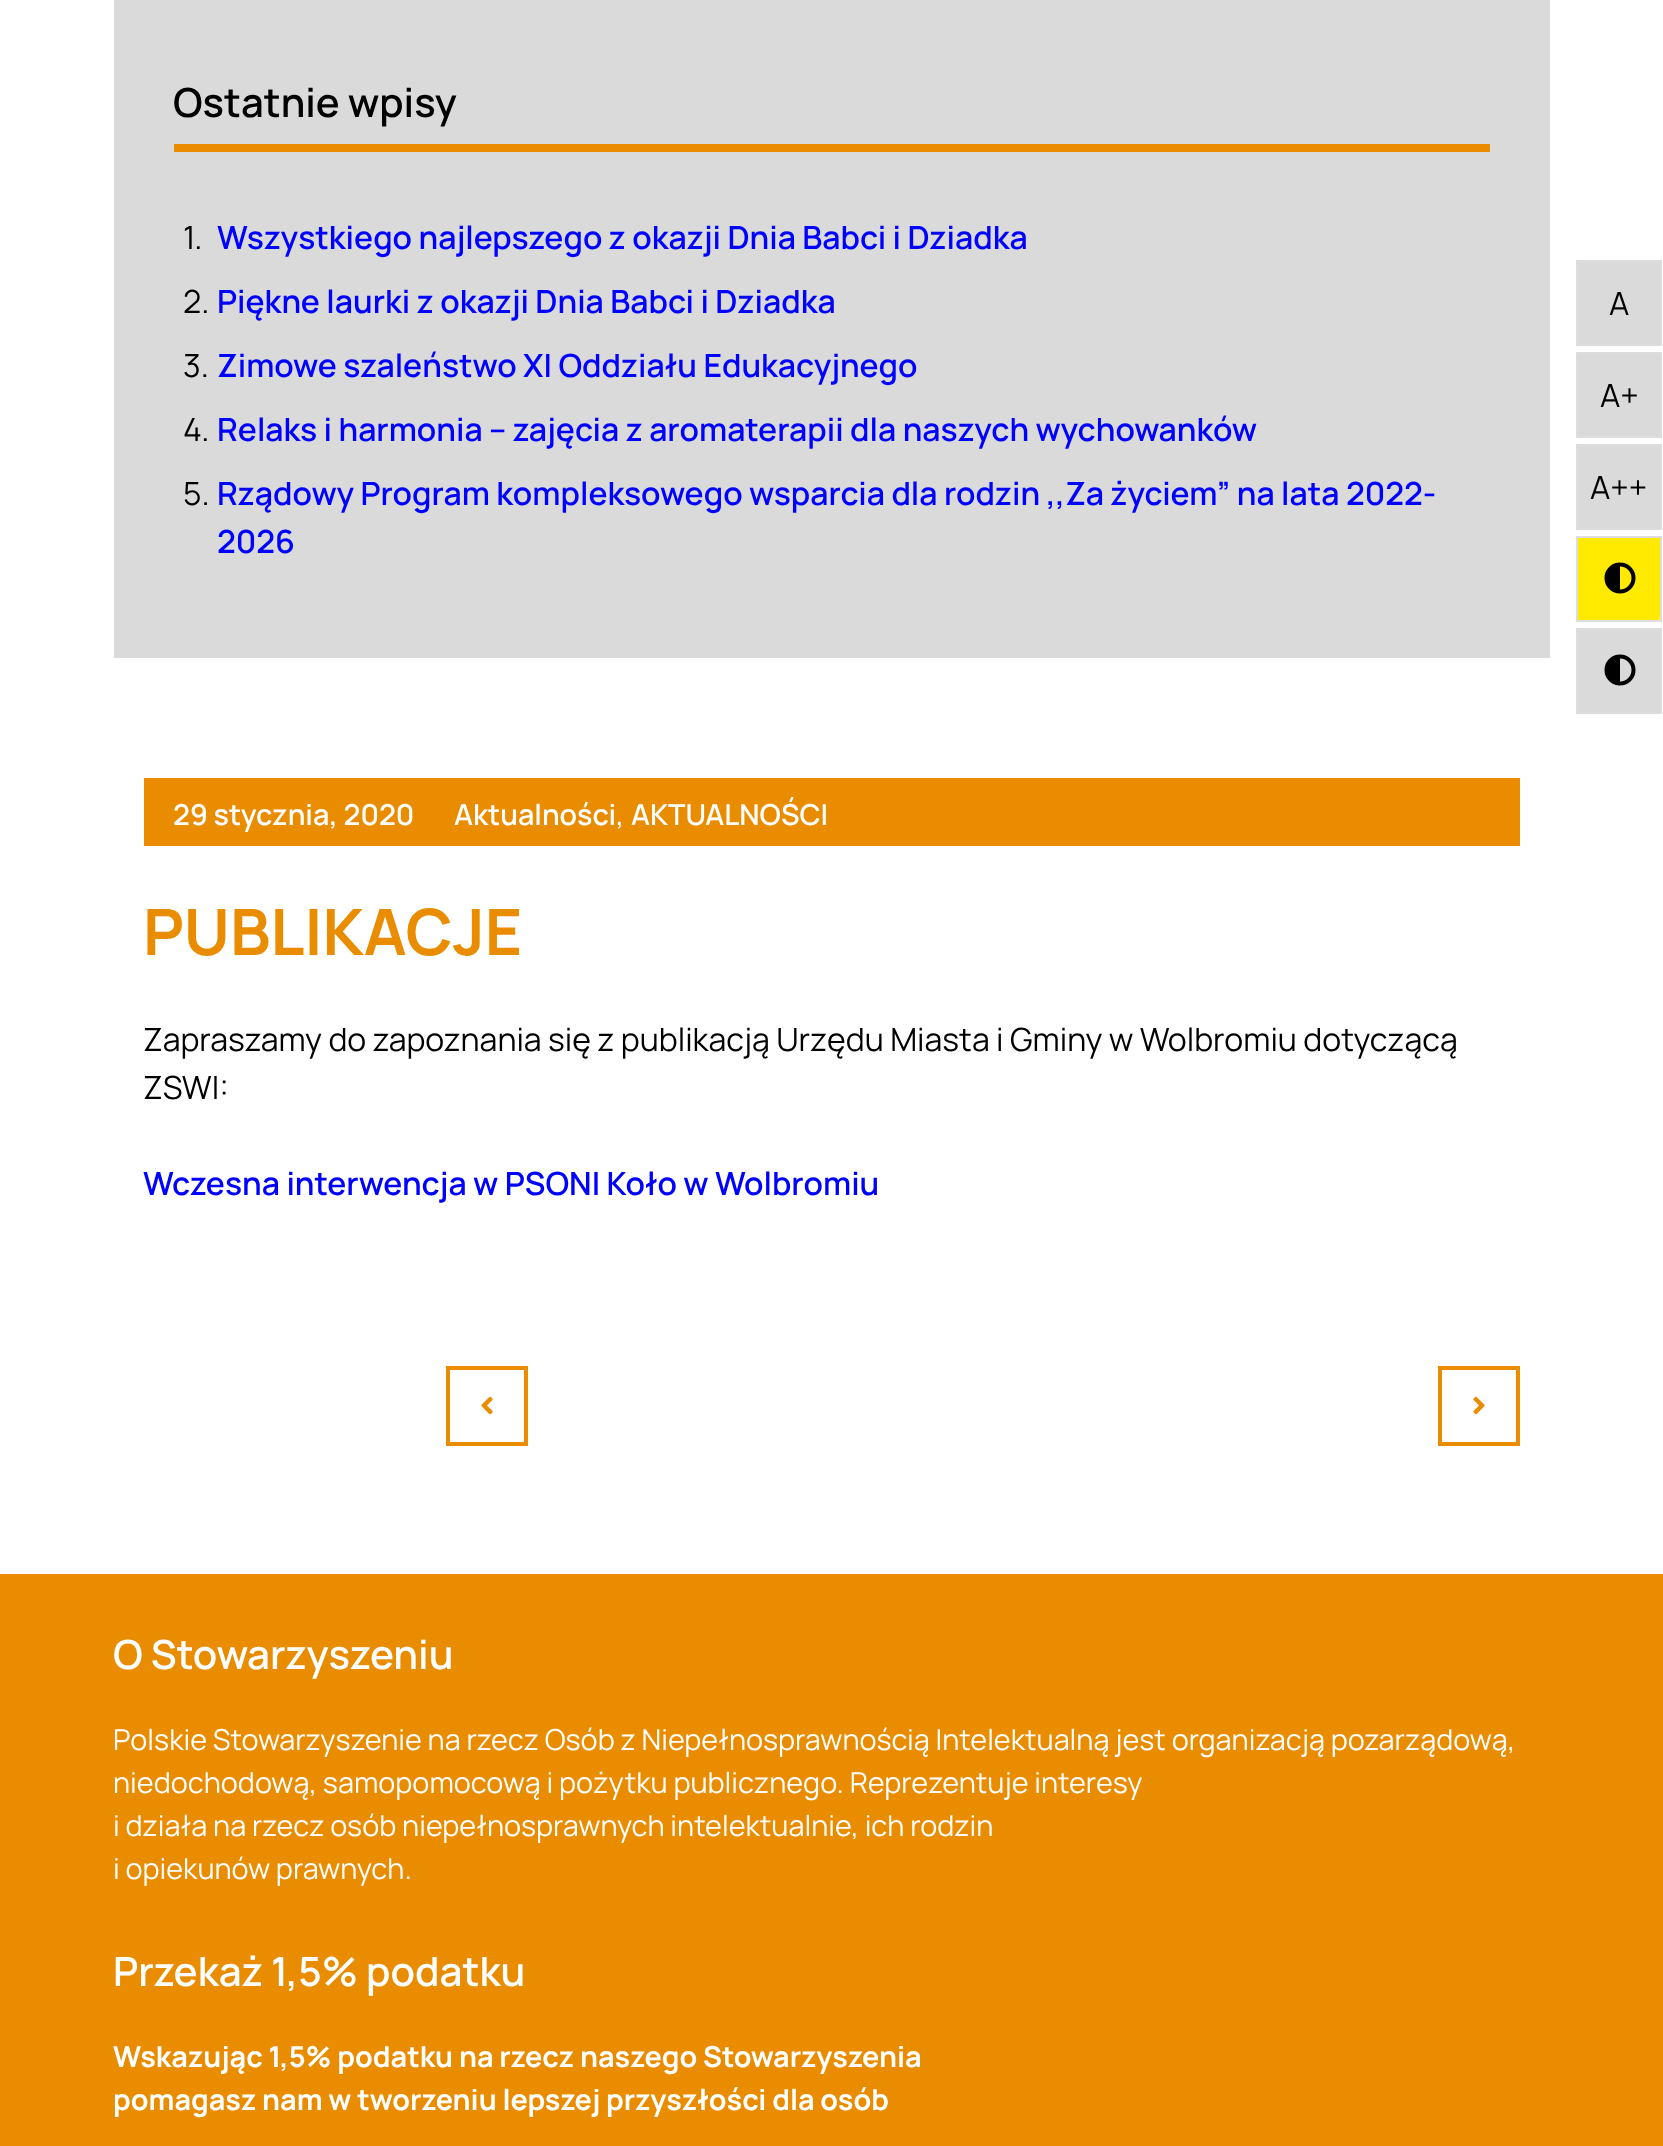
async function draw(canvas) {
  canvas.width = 1663;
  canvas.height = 2146;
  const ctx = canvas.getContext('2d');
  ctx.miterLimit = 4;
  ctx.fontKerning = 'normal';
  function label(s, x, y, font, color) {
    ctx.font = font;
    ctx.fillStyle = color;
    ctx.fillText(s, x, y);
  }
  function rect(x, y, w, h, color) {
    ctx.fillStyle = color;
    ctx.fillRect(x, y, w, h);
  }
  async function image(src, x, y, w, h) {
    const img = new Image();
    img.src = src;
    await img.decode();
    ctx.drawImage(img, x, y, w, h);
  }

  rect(0, 0, 1663, 2146, '#fff');
  rect(114, 0, 1436, 658, '#dadada');
  rect(174, 144, 1316, 8, '#ea8c00');
  label('Ostatnie wpisy', 173, 117, '600 40px Manrope', '#000');
  label('1.', 183, 249, '32px Manrope', '#000');
  label('Wszystkiego najlepszego z okazji Dnia Babci i Dziadka', 217, 249, '600 32px Manrope', '#00f');
  label('2.', 183, 313, '32px Manrope', '#000');
  label('Piękne laurki z okazji Dnia Babci i Dziadka', 217, 313, '600 32px Manrope', '#00f');
  label('3.', 183, 377, '32px Manrope', '#000');
  label('Zimowe szaleństwo XI Oddziału Edukacyjnego', 217, 377, '600 32px Manrope', '#00f');
  label('4.', 183, 441, '32px Manrope', '#000');
  label('Relaks i harmonia – zajęcia z aromaterapii dla naszych wychowanków', 217, 441, '600 32px Manrope', '#00f');
  label('5.', 183, 505, '32px Manrope', '#000');
  label('Rządowy Program kompleksowego wsparcia dla rodzin ,,Za życiem” na lata 2022-', 217, 505, '600 32px Manrope', '#00f');
  label('2026', 217, 553, '600 32px Manrope', '#00f');
  rect(144, 778, 1376, 68, '#ea8c00');
  label('29 stycznia, 2020', 173, 825, '600 28.8px Manrope', '#fff');
  label('Aktualności', 454, 825, '600 28.8px Manrope', '#fff');
  label(',', 616, 825, '32px Manrope', '#fff');
  label('AKTUALNOŚCI', 631, 825, '600 28.8px Manrope', '#fff');
  label('PUBLIKACJE', 143, 955, 'bold 64px Manrope', '#ea8c00');
  label('Zapraszamy do zapoznania się z publikacją Urzędu Miasta i Gminy w Wolbromiu dotyczącą', 143, 1051, '32px Manrope', '#000');
  label('ZSWI:', 143, 1099, '32px Manrope', '#000');
  label('Wczesna interwencja w PSONI Koło w Wolbromiu', 143, 1195, '600 32px Manrope', '#00f');
  ctx.strokeStyle = '#ea8c00';
  ctx.lineWidth = 4;
  ctx.strokeRect(448, 1368, 78, 76);
  await image('assets/img1.png', 481, 1396, 12, 19);
  ctx.strokeRect(1440, 1368, 78, 76);
  await image('assets/img2.png', 1473, 1396, 12, 19);
  ctx.fillStyle = '#dadada';
  ctx.beginPath();
  ctx.rect(1577, 261, 84, 84);
  ctx.fill();
  ctx.strokeStyle = '#ddd';
  ctx.lineWidth = 2;
  ctx.stroke();
  label('A', 1609, 315, '32px Manrope', '#000');
  ctx.fillStyle = '#dadada';
  ctx.beginPath();
  ctx.rect(1577, 353, 84, 84);
  ctx.fill();
  ctx.stroke();
  label('A+', 1600, 407, '32px Manrope', '#000');
  ctx.fillStyle = '#dadada';
  ctx.beginPath();
  ctx.rect(1577, 445, 84, 84);
  ctx.fill();
  ctx.stroke();
  label('A++', 1590, 499, '32px Manrope', '#000');
  ctx.fillStyle = '#ffea00';
  ctx.beginPath();
  ctx.rect(1577, 537, 84, 84);
  ctx.fill();
  ctx.stroke();
  await image('assets/img3.png', 1604, 562, 32, 32);
  ctx.fillStyle = '#dadada';
  ctx.beginPath();
  ctx.rect(1577, 629, 84, 84);
  ctx.fill();
  ctx.stroke();
  await image('assets/img4.png', 1604, 654, 32, 32);
  rect(0, 1574, 1663, 572, '#ea8c00');
  label('O Stowarzyszeniu', 113, 1669, '600 40.25px Manrope', '#fff');
  label('Polskie Stowarzyszenie na rzecz Osób z Niepełnosprawnością Intelektualną jest organizacją pozarządową,', 113, 1750, '28.8px Manrope', '#fff');
  label('niedochodową, samopomocową i pożytku publicznego. Reprezentuje interesy', 113, 1793, '28.8px Manrope', '#fff');
  label('i działa na rzecz osób niepełnosprawnych intelektualnie, ich rodzin', 113, 1836, '28.8px Manrope', '#fff');
  label('i opiekunów prawnych.', 113, 1879, '28.8px Manrope', '#fff');
  label('Przekaż 1,5% podatku', 113, 1986, '600 40.25px Manrope', '#fff');
  label('Wskazując 1,5% podatku na rzecz naszego Stowarzyszenia', 113, 2067, 'bold 28.8px Manrope', '#fff');
  label('pomagasz nam w tworzeniu lepszej przyszłości dla osób', 113, 2110, 'bold 28.8px Manrope', '#fff');
}

draw(document.querySelector('canvas'));
